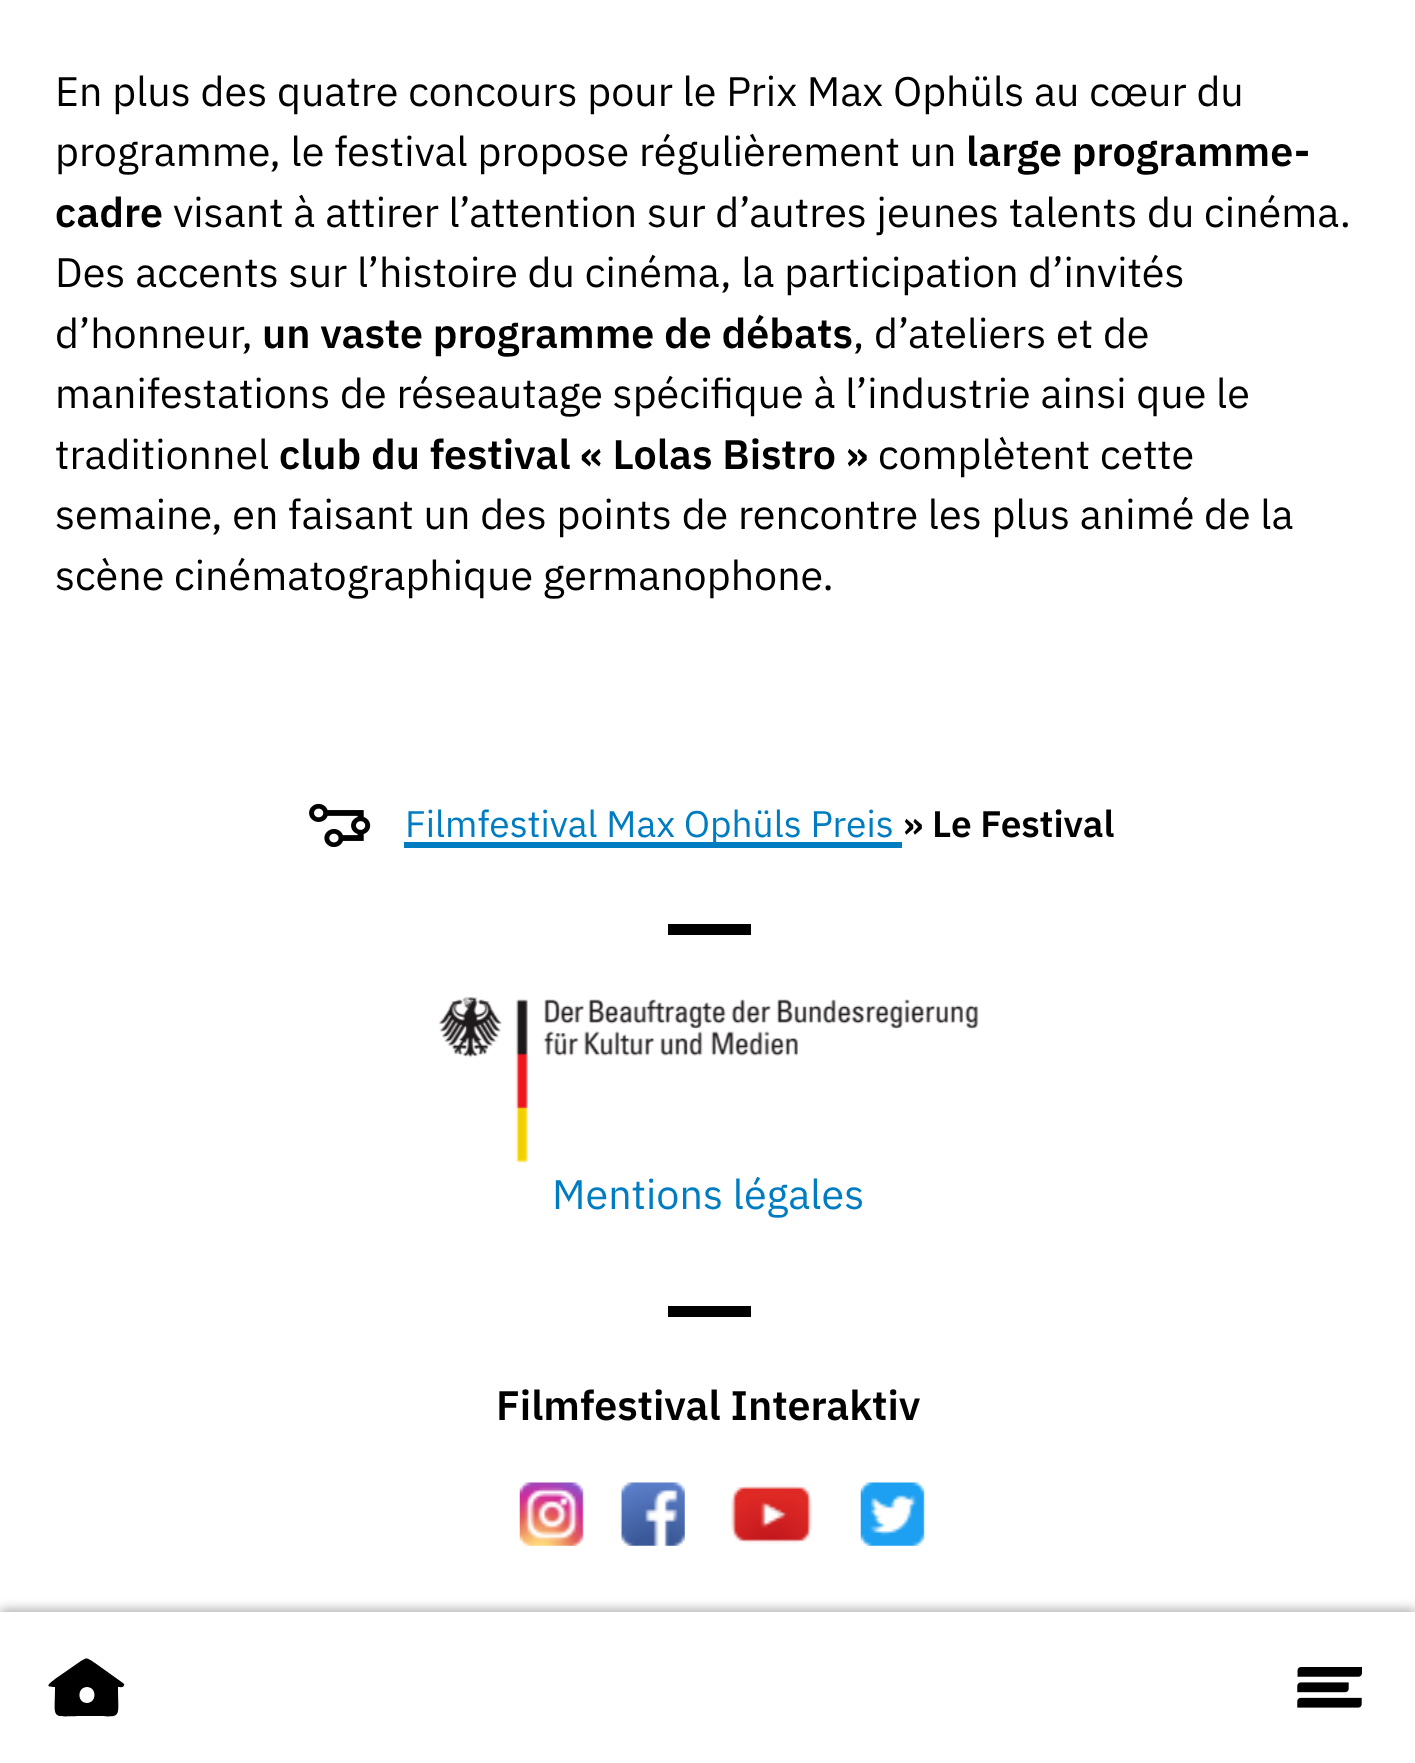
async function draw(canvas) {
  canvas.width = 1415;
  canvas.height = 1763;
  const ctx = canvas.getContext('2d');
  ctx.miterLimit = 4;
  ctx.fontKerning = 'normal';
  function label(s, x, y, font, color) {
    ctx.font = font;
    ctx.fillStyle = color;
    ctx.fillText(s, x, y);
  }
  function rect(x, y, w, h, color) {
    ctx.fillStyle = color;
    ctx.fillRect(x, y, w, h);
  }
  async function image(src, x, y, w, h) {
    const img = new Image();
    img.src = src;
    await img.decode();
    ctx.drawImage(img, x, y, w, h);
  }
  let path;

  rect(0, 0, 1415, 1763, '#fff');
  label('En plus des quatre concours pour le Prix Max Ophüls au cœur du', 55, 106, '41.25px IBM Plex Sans', '#000');
  label('programme, le festival propose régulièrement un', 55, 166, '41.25px IBM Plex Sans', '#000');
  label('large programme-', 966, 166, '600 41.25px IBM Plex Sans', '#000');
  label('cadre', 55, 227, '600 41.25px IBM Plex Sans', '#000');
  label('visant à attirer l’attention sur d’autres jeunes talents du cinéma.', 173, 227, '41.25px IBM Plex Sans', '#000');
  label('Des accents sur l’histoire du cinéma, la participation d’invités', 55, 287, '41.25px IBM Plex Sans', '#000');
  label('d’honneur,', 55, 348, '41.25px IBM Plex Sans', '#000');
  label('un vaste programme de débats', 262, 348, '600 41.25px IBM Plex Sans', '#000');
  label(', d’ateliers et de', 853, 348, '41.25px IBM Plex Sans', '#000');
  label('manifestations de réseautage spécifique à l’industrie ainsi que le', 55, 408, '41.25px IBM Plex Sans', '#000');
  label('traditionnel', 55, 469, '41.25px IBM Plex Sans', '#000');
  label('club du festival « Lolas Bistro »', 279, 469, '600 41.25px IBM Plex Sans', '#000');
  label('complètent cette', 878, 469, '41.25px IBM Plex Sans', '#000');
  label('semaine, en faisant un des points de rencontre les plus animé de la', 55, 529, '41.25px IBM Plex Sans', '#000');
  label('scène cinématographique germanophone.', 55, 590, '41.25px IBM Plex Sans', '#000');
  await image('assets/img1.png', 309, 803, 62, 44);
  rect(404, 842, 498, 6, '#007cc1');
  label('Filmfestival Max Ophüls Preis', 405, 837, '37.1px IBM Plex Sans', '#007cc1');
  label('» Le Festival', 903, 837, '600 37.1px IBM Plex Sans', '#000');
  rect(668, 924, 83, 11, '#000');
  await image('assets/img2.png', 438, 997, 541, 166);
  label('Mentions légales', 552, 1209, '41.25px IBM Plex Sans', '#007cc1');
  rect(668, 1306, 83, 11, '#000');
  label('Filmfestival Interaktiv', 496, 1420, '600 41.25px IBM Plex Sans', '#000');
  await image('assets/img3.png', 519, 1482, 65, 64);
  await image('assets/img4.png', 620, 1482, 65, 64);
  await image('assets/img5.png', 731, 1485, 82, 59);
  await image('assets/img6.png', 860, 1482, 65, 64);
  ctx.fillStyle = '#0000004d';
  ctx.filter = 'blur(5.5px)';
  ctx.beginPath();
  ctx.rect(0, 1609, 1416, 154);
  ctx.fill();
  ctx.filter = 'none';
  rect(0, 1612, 1415, 151, '#fff');
  ctx.fillStyle = '#000';
  path = new Path2D('M123 1683L95 1663C86 1657 87 1657 78 1663L55 1679C49 1684 44 1687 55 1687C55 1722 49 1716 87 1716C124 1716 118 1722 118 1687C120 1687 124 1688 124 1685C125 1685 124 1684 123 1683ZM87 1703C77 1703 77 1687 87 1687C97 1687 97 1703 87 1703Z');
  ctx.fill(path);
  await image('assets/img7.png', 1297, 1667, 65, 41);
}

draw(document.querySelector('canvas'));
